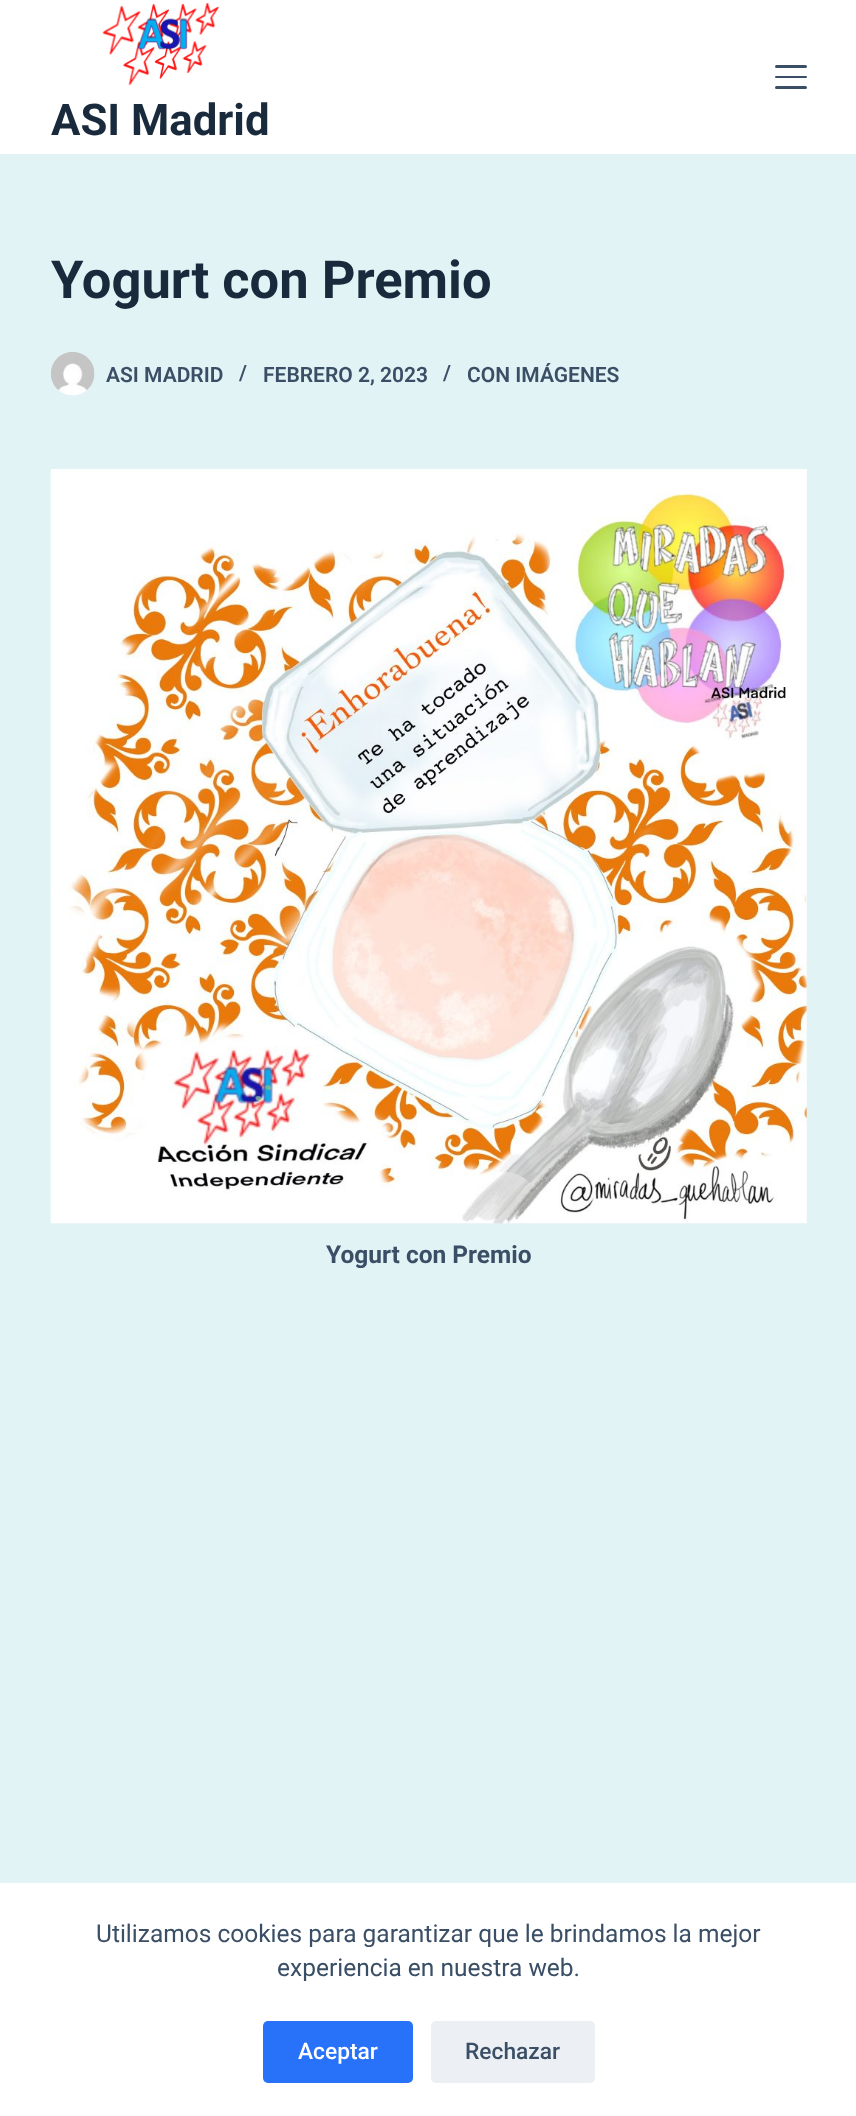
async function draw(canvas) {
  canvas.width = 856;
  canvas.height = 2116;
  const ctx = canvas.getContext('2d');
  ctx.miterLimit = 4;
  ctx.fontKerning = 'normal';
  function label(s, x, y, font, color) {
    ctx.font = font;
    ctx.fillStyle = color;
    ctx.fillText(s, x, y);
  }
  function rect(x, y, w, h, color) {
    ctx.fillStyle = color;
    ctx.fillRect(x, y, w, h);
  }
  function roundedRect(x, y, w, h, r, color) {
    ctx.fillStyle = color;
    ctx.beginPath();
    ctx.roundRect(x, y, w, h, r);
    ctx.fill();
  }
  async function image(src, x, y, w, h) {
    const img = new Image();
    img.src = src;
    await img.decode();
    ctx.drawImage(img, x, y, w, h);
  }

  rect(0, 0, 856, 2116, '#e2f3f6');
  rect(0, 0, 856, 154, '#fff');
  roundedRect(775, 65, 32, 3, 1.5, '#3a4f66');
  roundedRect(775, 76, 32, 2, 1, '#3a4f66');
  roundedRect(775, 86, 32, 3, 1.5, '#3a4f66');
  await image('assets/img1.png', 102, 3, 118, 83);
  label('ASI Madrid', 51, 135, 'bold 43.75px Roboto', '#192a3d');
  label('Yogurt con Premio', 51, 298, 'bold 52.5px Roboto', '#192a3d');
  await image('assets/img2.png', 51, 352, 44, 44);
  label('ASI MADRID', 106, 382, '600 21px Roboto', '#3a4f66');
  label('/', 239, 380, '600 21px Roboto', '#3a4f66');
  label('FEBRERO 2, 2023', 263, 382, '600 21px Roboto', '#3a4f66');
  label('/', 443, 380, '600 21px Roboto', '#3a4f66');
  label('CON IMÁGENES', 467, 382, '600 21px Roboto', '#3a4f66');
  await image('assets/img3.png', 50, 469, 757, 755);
  label('Yogurt con Premio', 326, 1263, 'bold 24.5px Roboto', '#3a4f66');
  rect(0, 1883, 856, 233, '#fff');
  label('Utilizamos cookies para garantizar que le brindamos la mejor', 96, 1942, '24.5px Roboto', '#3a4f66');
  label('experiencia en nuestra web.', 277, 1976, '24.5px Roboto', '#3a4f66');
  roundedRect(263, 2021, 150, 62, 5, '#2872fa');
  label('Aceptar', 298, 2059, '500 22.75px Roboto', '#fff');
  roundedRect(431, 2021, 164, 62, 5, '#eceff3');
  label('Rechazar', 465, 2059, '500 22.75px Roboto', '#3a4f66');
}

draw(document.querySelector('canvas'));
